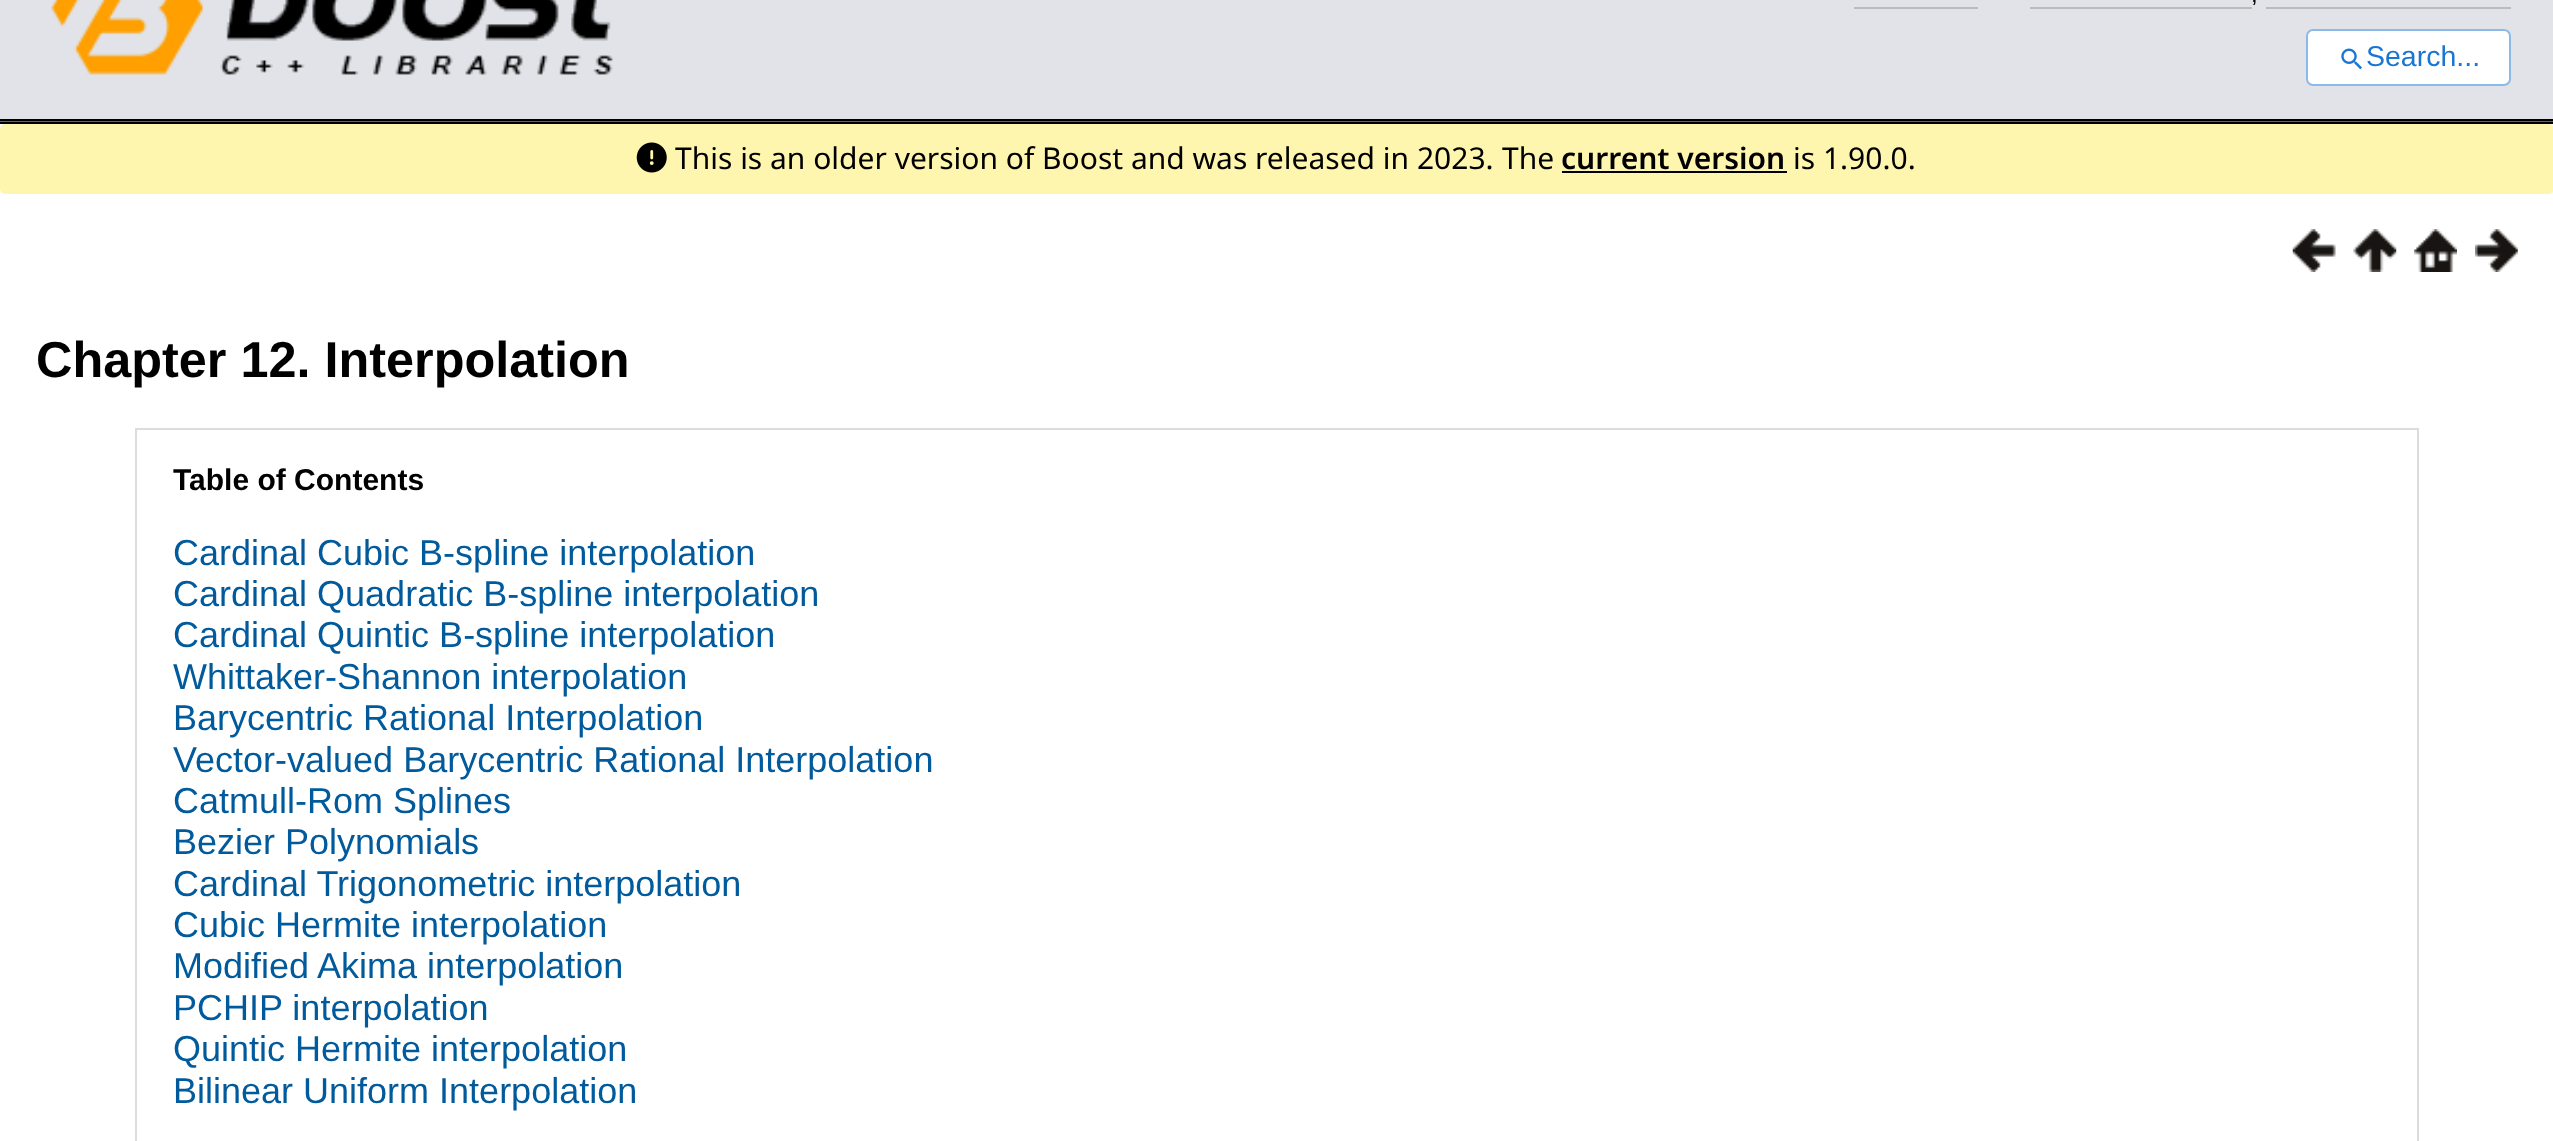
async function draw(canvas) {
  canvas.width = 2553;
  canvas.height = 1141;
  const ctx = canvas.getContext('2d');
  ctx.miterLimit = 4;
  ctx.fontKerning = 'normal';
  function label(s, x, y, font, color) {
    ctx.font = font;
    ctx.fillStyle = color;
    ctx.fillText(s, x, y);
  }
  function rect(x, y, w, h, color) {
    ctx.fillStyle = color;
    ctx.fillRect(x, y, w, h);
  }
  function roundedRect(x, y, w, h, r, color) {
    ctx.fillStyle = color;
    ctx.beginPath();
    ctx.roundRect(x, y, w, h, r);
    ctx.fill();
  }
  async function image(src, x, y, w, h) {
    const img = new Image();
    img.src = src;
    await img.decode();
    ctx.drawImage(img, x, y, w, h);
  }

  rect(0, 0, 2553, 1141, '#fff');
  rect(0, 121, 2553, 1, '#4f744d');
  rect(0, 0, 2553, 119, '#e1e3e8');
  rect(0, 122, 2553, 2, '#000');
  await image('assets/img1.png', 51, 0, 562, 75);
  rect(0, 119, 2553, 2, '#000');
  label(',', 2251, 2, '24px Liberation Sans', '#000');
  rect(1854, 7, 124, 2, '#bbb');
  rect(2030, 7, 222, 2, '#bbb');
  rect(2266, 7, 245, 2, '#bbb');
  roundedRect(2306, 29, 205, 57, 7, '#fff');
  ctx.beginPath();
  ctx.roundRect(2307, 30, 203, 55, 6);
  ctx.strokeStyle = '#1976d280';
  ctx.lineWidth = 2;
  ctx.stroke();
  await image('assets/img2.png', 2341, 48, 21, 22);
  label('Search...', 2366, 66, '28.5px Liberation Sans', '#1976d2');
  roundedRect(0, 124, 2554, 70, 5, '#fef5ae');
  await image('assets/img3.png', 636, 142, 31, 31);
  label('This is an older version of Boost and was released in 2023.', 675, 169, '30px Noto Sans', '#000');
  label('The', 1502, 169, '30px Noto Sans', '#000');
  label('current version', 1561, 169, '600 30px Noto Sans', '#000');
  rect(1562, 171, 225, 2, '#000');
  label('is 1.90.0.', 1793, 169, '30px Noto Sans', '#000');
  await image('assets/img4.png', 2292, 229, 44, 43);
  await image('assets/img5.png', 2353, 229, 44, 43);
  await image('assets/img6.png', 2414, 229, 43, 43);
  await image('assets/img7.png', 2475, 229, 43, 43);
  label('Chapter 12. Interpolation', 36, 377, 'bold 50.4px Liberation Sans', '#000');
  ctx.strokeStyle = '#dcdcdc';
  ctx.strokeRect(136, 429, 2282, 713);
  label('Table of Contents', 173, 490, 'bold 30px Liberation Sans', '#000');
  label('Cardinal Cubic B-spline interpolation', 173, 565, '36px Liberation Sans', '#005a9c');
  label('Cardinal Quadratic B-spline interpolation', 173, 606, '36px Liberation Sans', '#005a9c');
  label('Cardinal Quintic B-spline interpolation', 173, 647, '36px Liberation Sans', '#005a9c');
  label('Whittaker-Shannon interpolation', 173, 689, '36px Liberation Sans', '#005a9c');
  label('Barycentric Rational Interpolation', 173, 730, '36px Liberation Sans', '#005a9c');
  label('Vector-valued Barycentric Rational Interpolation', 173, 772, '36px Liberation Sans', '#005a9c');
  label('Catmull-Rom Splines', 173, 813, '36px Liberation Sans', '#005a9c');
  label('Bezier Polynomials', 173, 854, '36px Liberation Sans', '#005a9c');
  label('Cardinal Trigonometric interpolation', 173, 896, '36px Liberation Sans', '#005a9c');
  label('Cubic Hermite interpolation', 173, 937, '36px Liberation Sans', '#005a9c');
  label('Modified Akima interpolation', 173, 978, '36px Liberation Sans', '#005a9c');
  label('PCHIP interpolation', 173, 1020, '36px Liberation Sans', '#005a9c');
  label('Quintic Hermite interpolation', 173, 1061, '36px Liberation Sans', '#005a9c');
  label('Bilinear Uniform Interpolation', 173, 1103, '36px Liberation Sans', '#005a9c');
}

draw(document.querySelector('canvas'));
